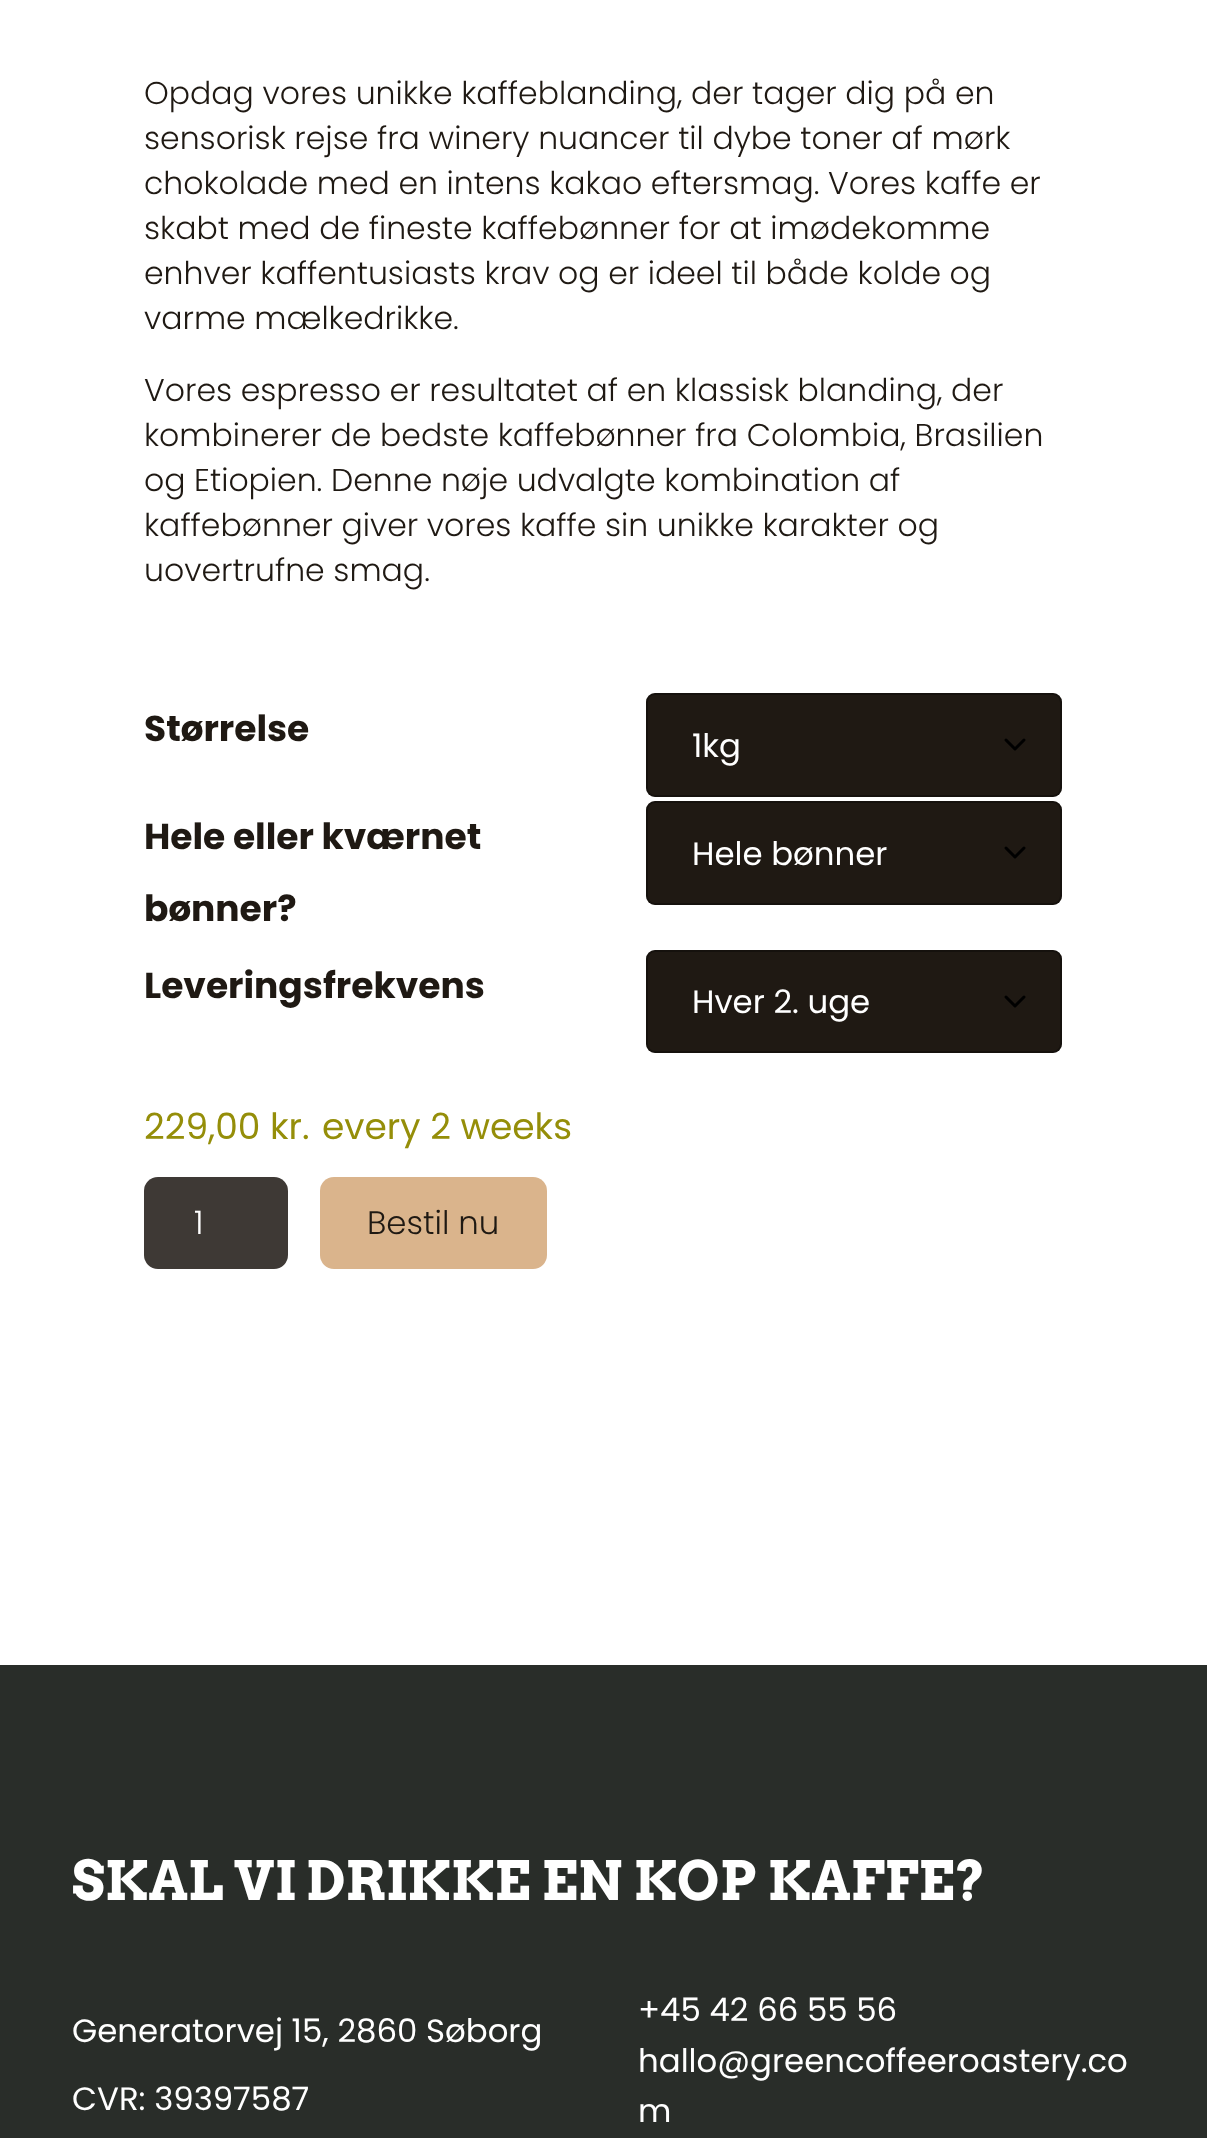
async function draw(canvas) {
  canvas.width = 1207;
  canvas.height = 2138;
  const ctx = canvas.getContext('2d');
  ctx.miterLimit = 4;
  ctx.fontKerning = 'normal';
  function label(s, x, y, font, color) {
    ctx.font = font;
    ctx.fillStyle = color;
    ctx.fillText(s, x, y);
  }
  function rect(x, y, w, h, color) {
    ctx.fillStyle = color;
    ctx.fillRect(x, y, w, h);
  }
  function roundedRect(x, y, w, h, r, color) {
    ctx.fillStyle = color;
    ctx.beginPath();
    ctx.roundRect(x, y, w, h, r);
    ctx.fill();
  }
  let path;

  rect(0, 0, 1207, 2138, '#292d29');
  rect(0, 0, 1207, 1665, '#fff');
  label('Opdag vores unikke kaffeblanding, der tager dig på en', 144, 104, '300 31.5px Poppins', '#1f1913');
  label('sensorisk rejse fra winery nuancer til dybe toner af mørk', 144, 149, '300 31.5px Poppins', '#1f1913');
  label('chokolade med en intens kakao eftersmag. Vores kaffe er', 144, 194, '300 31.5px Poppins', '#1f1913');
  label('skabt med de fineste kaffebønner for at imødekomme', 144, 239, '300 31.5px Poppins', '#1f1913');
  label('enhver kaffentusiasts krav og er ideel til både kolde og', 144, 284, '300 31.5px Poppins', '#1f1913');
  label('varme mælkedrikke.', 144, 329, '300 31.5px Poppins', '#1f1913');
  label('Vores espresso er resultatet af en klassisk blanding, der', 144, 401, '300 31.5px Poppins', '#1f1913');
  label('kombinerer de bedste kaffebønner fra Colombia, Brasilien', 144, 446, '300 31.5px Poppins', '#1f1913');
  label('og Etiopien. Denne nøje udvalgte kombination af', 144, 491, '300 31.5px Poppins', '#1f1913');
  label('kaffebønner giver vores kaffe sin unikke karakter og', 144, 536, '300 31.5px Poppins', '#1f1913');
  label('uovertrufne smag.', 144, 581, '300 31.5px Poppins', '#1f1913');
  label('Størrelse', 144, 741, 'bold 36px Poppins', '#1f1913');
  roundedRect(646, 693, 416, 104, 9, '#1f1913');
  path = new Path2D('M1006 740L1015 749L1024 740');
  ctx.strokeStyle = '#000';
  ctx.lineWidth = 3;
  ctx.lineCap = 'round';
  ctx.lineJoin = 'round';
  ctx.stroke(path);
  ctx.beginPath();
  ctx.roundRect(647, 694, 414, 102, 8);
  ctx.strokeStyle = '#0000004d';
  ctx.lineWidth = 2;
  ctx.lineJoin = 'miter';
  ctx.stroke();
  label('1kg', 692, 757, '32.4px Poppins', '#fff');
  label('Hele eller kværnet', 144, 849, 'bold 36px Poppins', '#1f1913');
  label('bønner?', 144, 921, 'bold 36px Poppins', '#1f1913');
  roundedRect(646, 801, 416, 104, 9, '#1f1913');
  path = new Path2D('M1006 848L1015 857L1024 848');
  ctx.strokeStyle = '#000';
  ctx.lineWidth = 3;
  ctx.lineJoin = 'round';
  ctx.stroke(path);
  ctx.beginPath();
  ctx.roundRect(647, 802, 414, 102, 8);
  ctx.strokeStyle = '#0000004d';
  ctx.lineWidth = 2;
  ctx.lineJoin = 'miter';
  ctx.stroke();
  label('Hele bønner', 692, 865, '32.4px Poppins', '#fff');
  label('Leveringsfrekvens', 144, 998, 'bold 36px Poppins', '#1f1913');
  roundedRect(646, 950, 416, 103, 9, '#1f1913');
  path = new Path2D('M1006 997L1015 1006L1024 997');
  ctx.strokeStyle = '#000';
  ctx.lineWidth = 3;
  ctx.lineJoin = 'round';
  ctx.stroke(path);
  ctx.beginPath();
  ctx.roundRect(647, 951, 414, 101, 8);
  ctx.strokeStyle = '#0000004d';
  ctx.lineWidth = 2;
  ctx.lineJoin = 'miter';
  ctx.stroke();
  label('Hver 2. uge', 692, 1013, '32.4px Poppins', '#fff');
  label('229,00 kr.', 144, 1139, '36px Poppins', '#958e09');
  label('every 2 weeks', 322, 1139, '36px Poppins', '#958e09');
  roundedRect(144, 1177, 144, 92, 14, '#3e3935');
  label('1', 194, 1234, '300 32.4px Poppins', '#fff');
  roundedRect(320, 1177, 227, 92, 14, '#dab48c');
  label('Bestil nu', 367, 1234, '300 32.4px Poppins', '#1f1913');
  label('SKAL VI DRIKKE EN KOP KAFFE?', 72, 1900, 'bold 54px Arvo', '#fff');
  label('Generatorvej 15, 2860 Søborg', 72, 2042, '32.4px Poppins', '#fff');
  label('CVR: 39397587', 72, 2110, '32.4px Poppins', '#fff');
  label('+45 42 66 55 56', 638, 2021, '32.4px Poppins', '#fff');
  label('hallo@greencoffeeroastery.co', 638, 2072, '32.4px Poppins', '#fff');
  label('m', 638, 2122, '32.4px Poppins', '#fff');
}

draw(document.querySelector('canvas'));
